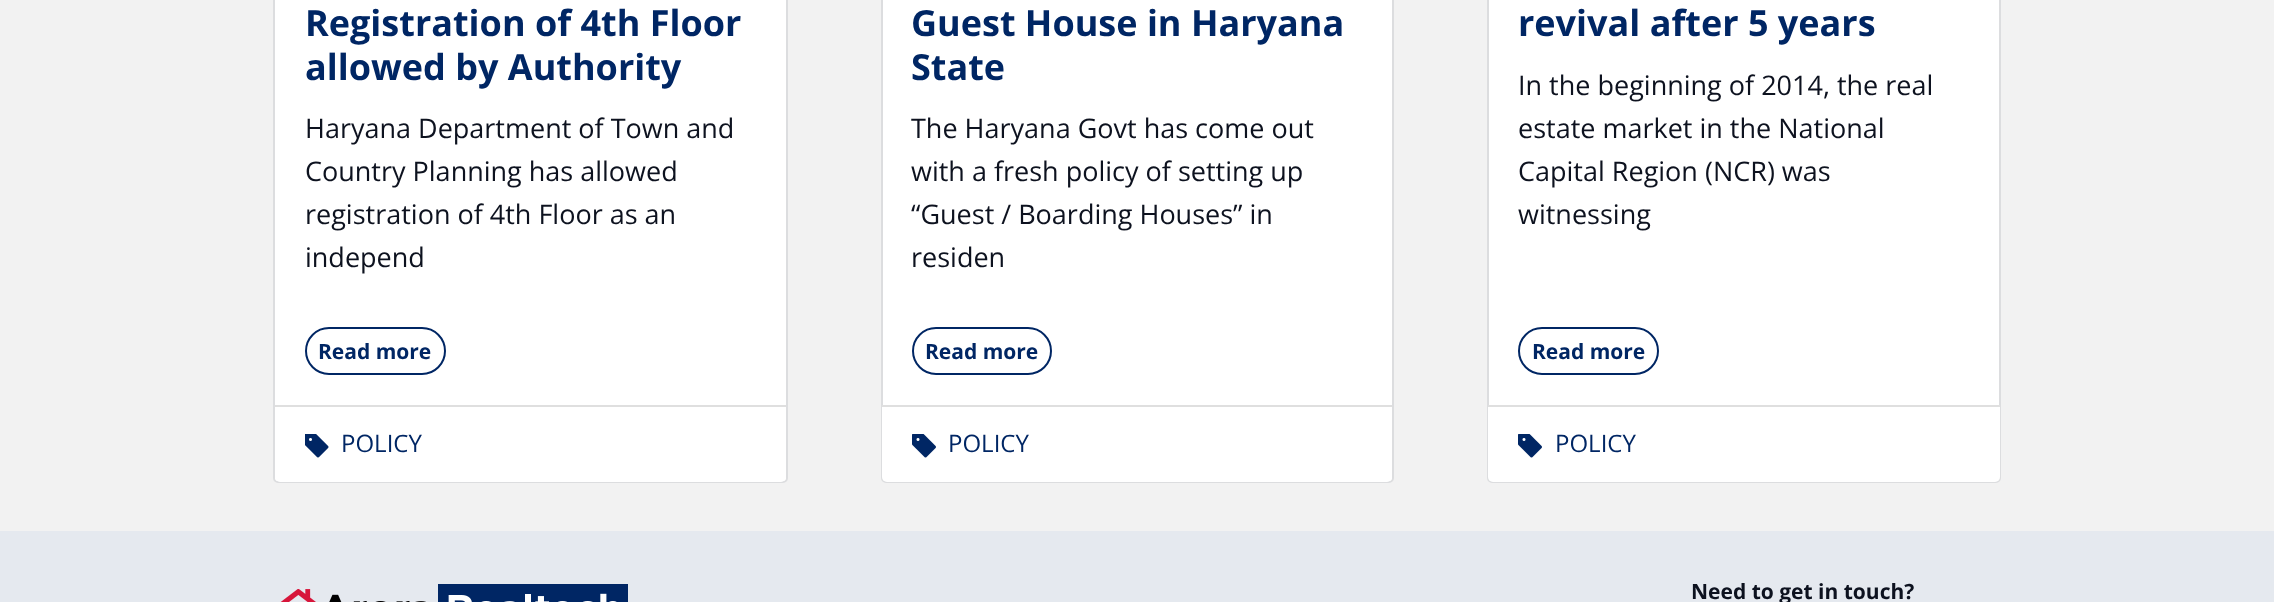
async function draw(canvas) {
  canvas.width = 2274;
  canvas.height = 602;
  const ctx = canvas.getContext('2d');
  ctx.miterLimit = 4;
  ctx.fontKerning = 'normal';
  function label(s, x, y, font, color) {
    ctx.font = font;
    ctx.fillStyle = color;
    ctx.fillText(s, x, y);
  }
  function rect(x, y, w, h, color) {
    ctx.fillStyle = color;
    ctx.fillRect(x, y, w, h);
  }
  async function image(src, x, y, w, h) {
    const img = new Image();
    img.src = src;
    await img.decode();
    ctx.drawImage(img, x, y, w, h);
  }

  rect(0, 0, 2274, 602, '#f2f2f2');
  ctx.fillStyle = '#fff';
  ctx.beginPath();
  ctx.roundRect(274, -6, 513, 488, 4);
  ctx.fill();
  ctx.strokeStyle = '#dcdddf';
  ctx.lineWidth = 2;
  ctx.stroke();
  label('Registration of 4th Floor', 305, 36, 'bold 36px Open Sans', '#002664');
  label('allowed by Authority', 305, 80, 'bold 36px Open Sans', '#002664');
  label('Haryana Department of Town and', 305, 138, '27px Open Sans', '#0d121f');
  label('Country Planning has allowed', 305, 181, '27px Open Sans', '#0d121f');
  label('registration of 4th Floor as an', 305, 224, '27px Open Sans', '#0d121f');
  label('independ', 305, 267, '27px Open Sans', '#0d121f');
  ctx.beginPath();
  ctx.roundRect(306, 328, 139, 46, 23);
  ctx.strokeStyle = '#002664';
  ctx.stroke();
  label('Read more', 318, 359, 'bold 21px Open Sans', '#002664');
  ctx.fillStyle = '#fff';
  ctx.beginPath();
  ctx.roundRect(275, 405, 511, 77, [0, 0, 5, 5]);
  ctx.fill();
  rect(275, 405, 511, 2, '#dfdfdf');
  await image('assets/img1.png', 305, 434, 24, 24);
  label('POLICY', 341, 452, '24px Open Sans', '#002664');
  ctx.fillStyle = '#fff';
  ctx.beginPath();
  ctx.roundRect(882, -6, 511, 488, 4);
  ctx.fill();
  ctx.strokeStyle = '#dcdddf';
  ctx.stroke();
  label('Guest House in Haryana', 911, 36, 'bold 36px Open Sans', '#002664');
  label('State', 911, 80, 'bold 36px Open Sans', '#002664');
  label('The Haryana Govt has come out', 911, 138, '27px Open Sans', '#0d121f');
  label('with a fresh policy of setting up', 911, 181, '27px Open Sans', '#0d121f');
  label('“Guest / Boarding Houses” in', 911, 224, '27px Open Sans', '#0d121f');
  label('residen', 911, 267, '27px Open Sans', '#0d121f');
  ctx.beginPath();
  ctx.roundRect(913, 328, 138, 46, 23);
  ctx.strokeStyle = '#002664';
  ctx.stroke();
  label('Read more', 925, 359, 'bold 21px Open Sans', '#002664');
  ctx.fillStyle = '#fff';
  ctx.beginPath();
  ctx.roundRect(882, 405, 510, 77, [0, 0, 5, 5]);
  ctx.fill();
  rect(882, 405, 510, 2, '#dfdfdf');
  await image('assets/img2.png', 912, 434, 24, 24);
  label('POLICY', 948, 452, '24px Open Sans', '#002664');
  ctx.fillStyle = '#fff';
  ctx.beginPath();
  ctx.roundRect(1488, -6, 512, 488, 4);
  ctx.fill();
  ctx.strokeStyle = '#dcdddf';
  ctx.stroke();
  label('revival after 5 years', 1518, 36, 'bold 36px Open Sans', '#002664');
  label('In the beginning of 2014, the real', 1518, 95, '27px Open Sans', '#0d121f');
  label('estate market in the National', 1518, 138, '27px Open Sans', '#0d121f');
  label('Capital Region (NCR) was', 1518, 181, '27px Open Sans', '#0d121f');
  label('witnessing', 1518, 224, '27px Open Sans', '#0d121f');
  ctx.beginPath();
  ctx.roundRect(1519, 328, 139, 46, 23);
  ctx.strokeStyle = '#002664';
  ctx.stroke();
  label('Read more', 1532, 359, 'bold 21px Open Sans', '#002664');
  ctx.fillStyle = '#fff';
  ctx.beginPath();
  ctx.roundRect(1488, 405, 512, 77, [0, 0, 5, 5]);
  ctx.fill();
  rect(1488, 405, 512, 2, '#dfdfdf');
  await image('assets/img2.png', 1518, 434, 24, 24);
  label('POLICY', 1555, 452, '24px Open Sans', '#002664');
  rect(0, 531, 2274, 71, '#e5e9ef');
  await image('assets/img3.png', 280, 584, 348, 18);
  label('Need to get in touch?', 1691, 599, 'bold 21px Open Sans', '#0d121f');
}

draw(document.querySelector('canvas'));
